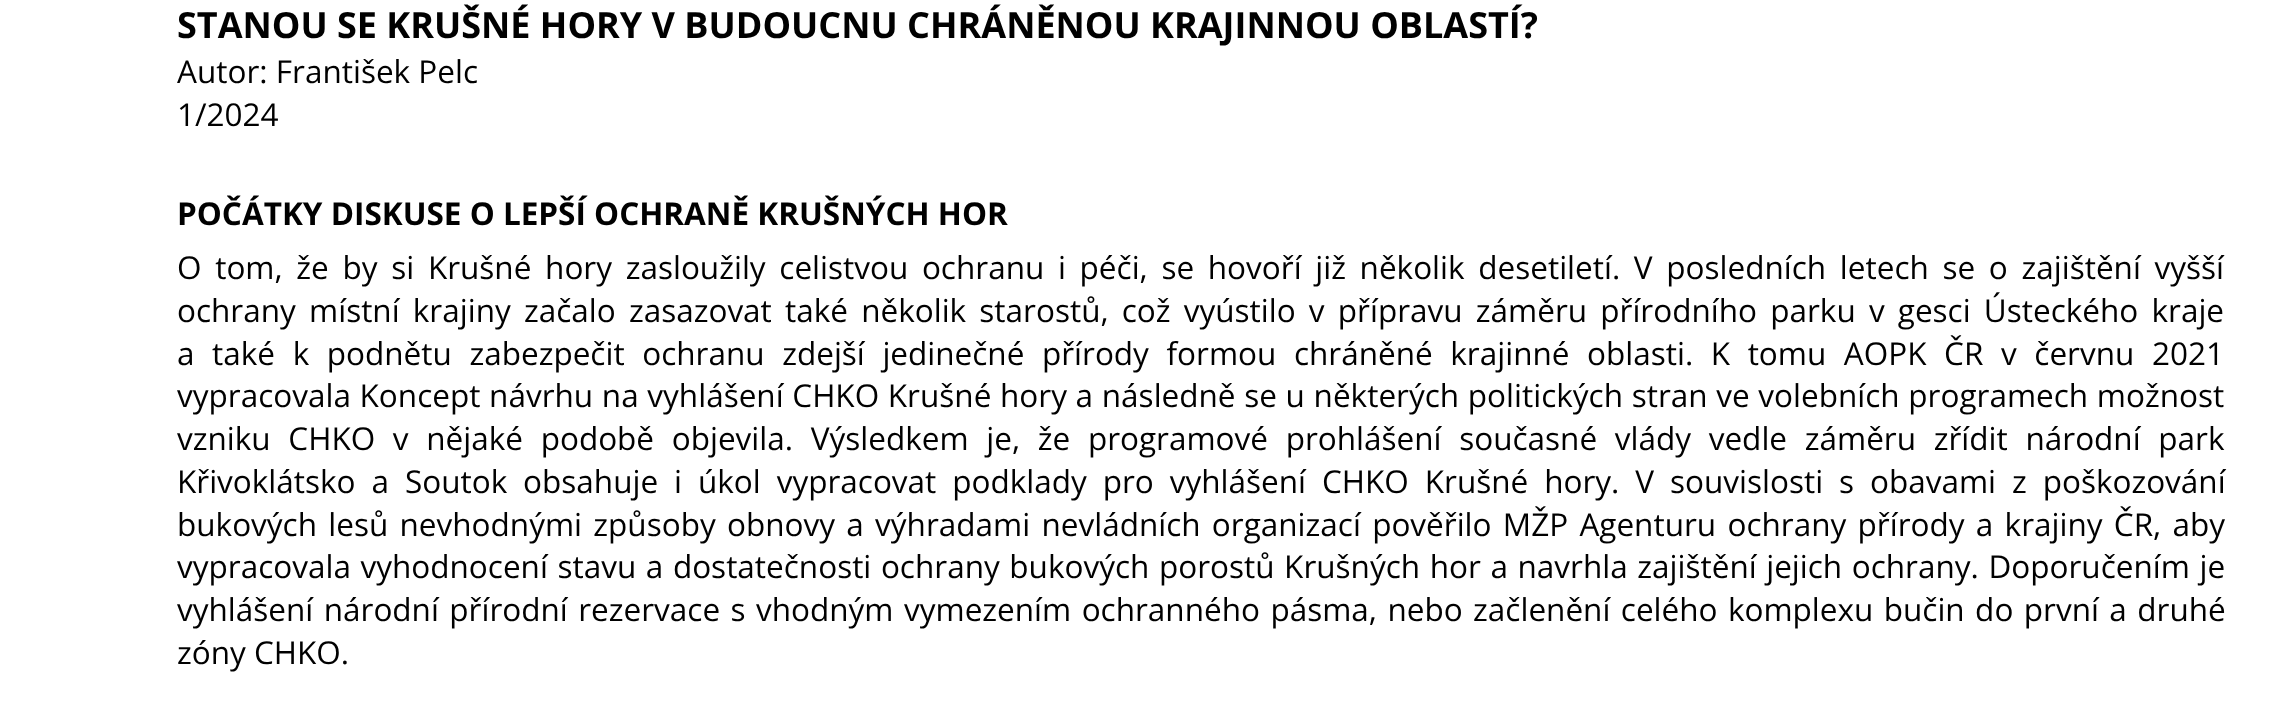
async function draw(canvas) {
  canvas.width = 2287;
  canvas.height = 718;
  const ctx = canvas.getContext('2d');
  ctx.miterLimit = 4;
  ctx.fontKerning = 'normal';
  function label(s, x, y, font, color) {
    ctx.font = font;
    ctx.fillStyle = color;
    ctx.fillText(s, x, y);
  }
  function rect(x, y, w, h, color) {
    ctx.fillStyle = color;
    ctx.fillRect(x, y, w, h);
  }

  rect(0, 0, 2287, 718, '#fff');
  label('STANOU SE KRUŠNÉ HORY V BUDOUCNU CHRÁNĚNOU KRAJINNOU OBLASTÍ?', 177, 38, 'bold 36px Open Sans', '#000');
  label('Autor: František Pelc', 177, 83, '31.5px Open Sans', '#000');
  label('1/2024', 177, 126, '31.5px Open Sans', '#000');
  label('POČÁTKY DISKUSE O LEPŠÍ OCHRANĚ KRUŠNÝCH HOR', 177, 225, 'bold 31.5px Open Sans', '#000');
  ctx.wordSpacing = '5.5px';
  label('O tom, že by si Krušné hory zasloužily celistvou ochranu i péči, se hovoří již několik desetiletí. V posledních letech se o zajištění vyšší', 177, 279, '31.5px Open Sans', '#000');
  ctx.wordSpacing = '5px';
  label('ochrany místní krajiny začalo zasazovat také několik starostů, což vyústilo v přípravu záměru přírodního parku v gesci Ústeckého kraje', 177, 322, '31.5px Open Sans', '#000');
  ctx.wordSpacing = '9.4px';
  label('a také k podnětu zabezpečit ochranu zdejší jedinečné přírody formou chráněné krajinné oblasti. K tomu AOPK ČR v červnu 2021', 177, 365, '31.5px Open Sans', '#000');
  ctx.wordSpacing = '0.5px';
  label('vypracovala Koncept návrhu na vyhlášení CHKO Krušné hory a následně se u některých politických stran ve volebních programech možnost', 177, 407, '31.5px Open Sans', '#000');
  ctx.wordSpacing = '9.5px';
  label('vzniku CHKO v nějaké podobě objevila. Výsledkem je, že programové prohlášení současné vlády vedle záměru zřídit národní park', 177, 450, '31.5px Open Sans', '#000');
  ctx.wordSpacing = '7.75px';
  label('Křivoklátsko a Soutok obsahuje i úkol vypracovat podklady pro vyhlášení CHKO Krušné hory. V souvislosti s obavami z poškozování', 177, 493, '31.5px Open Sans', '#000');
  ctx.wordSpacing = '3.1px';
  label('bukových lesů nevhodnými způsoby obnovy a výhradami nevládních organizací pověřilo MŽP Agenturu ochrany přírody a krajiny ČR, aby', 177, 536, '31.5px Open Sans', '#000');
  ctx.wordSpacing = '1.4px';
  label('vypracovala vyhodnocení stavu a dostatečnosti ochrany bukových porostů Krušných hor a navrhla zajištění jejich ochrany. Doporučením je', 177, 578, '31.5px Open Sans', '#000');
  ctx.wordSpacing = '2.25px';
  label('vyhlášení národní přírodní rezervace s vhodným vymezením ochranného pásma, nebo začlenění celého komplexu bučin do první a druhé', 177, 621, '31.5px Open Sans', '#000');
  ctx.wordSpacing = '0px';
  label('zóny CHKO.', 177, 664, '31.5px Open Sans', '#000');
}

draw(document.querySelector('canvas'));
